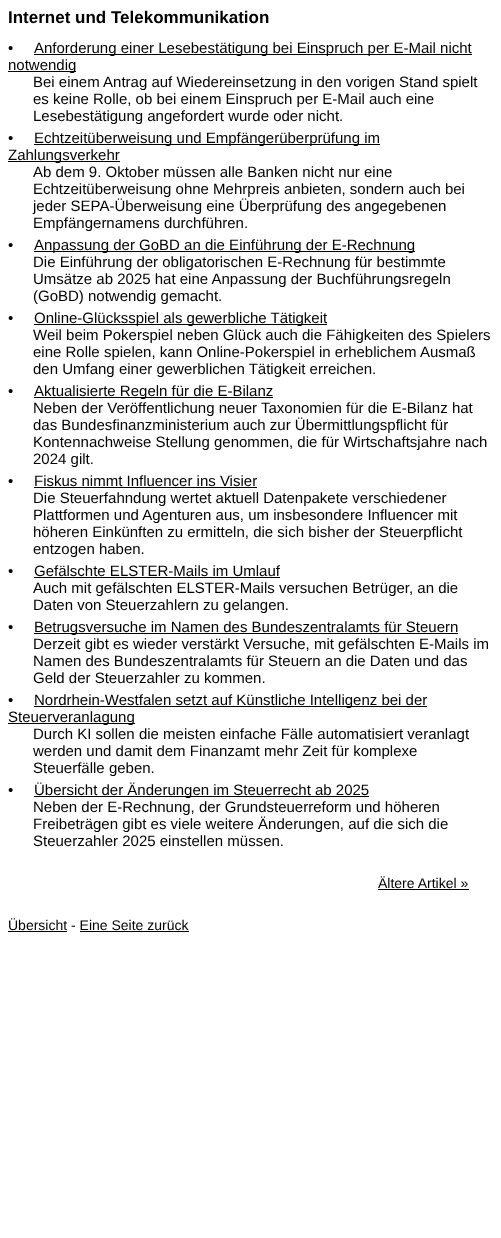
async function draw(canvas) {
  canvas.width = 501;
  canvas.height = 1238;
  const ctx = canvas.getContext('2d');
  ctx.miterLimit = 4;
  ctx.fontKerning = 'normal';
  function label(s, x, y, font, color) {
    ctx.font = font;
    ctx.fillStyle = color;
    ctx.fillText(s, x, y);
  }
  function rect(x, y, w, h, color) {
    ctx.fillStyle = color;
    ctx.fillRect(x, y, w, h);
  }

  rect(0, 0, 501, 1238, '#fff');
  label('Internet und Telekommunikation', 8, 23, 'bold 17px Liberation Sans', '#000');
  label('•', 8, 53, '15px Liberation Sans', '#000');
  rect(34, 54, 438, 1, '#000');
  label('Anforderung einer Lesebestätigung bei Einspruch per E-Mail nicht', 34, 53, '15px Liberation Sans', '#000');
  rect(8, 71, 68, 1, '#000');
  label('notwendig', 8, 70, '15px Liberation Sans', '#000');
  label('Bei einem Antrag auf Wiedereinsetzung in den vorigen Stand spielt', 33, 87, '15px Liberation Sans', '#000');
  label('es keine Rolle, ob bei einem Einspruch per E-Mail auch eine', 33, 104, '15px Liberation Sans', '#000');
  label('Lesebestätigung angefordert wurde oder nicht.', 33, 121, '15px Liberation Sans', '#000');
  label('•', 8, 143, '15px Liberation Sans', '#000');
  rect(34, 144, 346, 1, '#000');
  label('Echtzeitüberweisung und Empfängerüberprüfung im', 34, 143, '15px Liberation Sans', '#000');
  rect(8, 161, 112, 1, '#000');
  label('Zahlungsverkehr', 8, 160, '15px Liberation Sans', '#000');
  label('Ab dem 9. Oktober müssen alle Banken nicht nur eine', 33, 177, '15px Liberation Sans', '#000');
  label('Echtzeitüberweisung ohne Mehrpreis anbieten, sondern auch bei', 33, 194, '15px Liberation Sans', '#000');
  label('jeder SEPA-Überweisung eine Überprüfung des angegebenen', 33, 211, '15px Liberation Sans', '#000');
  label('Empfängernamens durchführen.', 33, 228, '15px Liberation Sans', '#000');
  label('•', 8, 250, '15px Liberation Sans', '#000');
  rect(34, 251, 381, 1, '#000');
  label('Anpassung der GoBD an die Einführung der E-Rechnung', 34, 250, '15px Liberation Sans', '#000');
  label('Die Einführung der obligatorischen E-Rechnung für bestimmte', 33, 267, '15px Liberation Sans', '#000');
  label('Umsätze ab 2025 hat eine Anpassung der Buchführungsregeln', 33, 284, '15px Liberation Sans', '#000');
  label('(GoBD) notwendig gemacht.', 33, 301, '15px Liberation Sans', '#000');
  label('•', 8, 323, '15px Liberation Sans', '#000');
  rect(34, 324, 293, 1, '#000');
  label('Online-Glücksspiel als gewerbliche Tätigkeit', 34, 323, '15px Liberation Sans', '#000');
  label('Weil beim Pokerspiel neben Glück auch die Fähigkeiten des Spielers', 33, 340, '15px Liberation Sans', '#000');
  label('eine Rolle spielen, kann Online-Pokerspiel in erheblichem Ausmaß', 33, 357, '15px Liberation Sans', '#000');
  label('den Umfang einer gewerblichen Tätigkeit erreichen.', 33, 374, '15px Liberation Sans', '#000');
  label('•', 8, 396, '15px Liberation Sans', '#000');
  rect(34, 397, 239, 1, '#000');
  label('Aktualisierte Regeln für die E-Bilanz', 34, 396, '15px Liberation Sans', '#000');
  label('Neben der Veröffentlichung neuer Taxonomien für die E-Bilanz hat', 33, 413, '15px Liberation Sans', '#000');
  label('das Bundesfinanzministerium auch zur Übermittlungspflicht für', 33, 430, '15px Liberation Sans', '#000');
  label('Kontennachweise Stellung genommen, die für Wirtschaftsjahre nach', 33, 447, '15px Liberation Sans', '#000');
  label('2024 gilt.', 33, 464, '15px Liberation Sans', '#000');
  label('•', 8, 486, '15px Liberation Sans', '#000');
  label('Fiskus nimmt Influencer ins Visier', 34, 486, '15px Liberation Sans', '#000');
  rect(34, 487, 223, 1, '#000');
  label('Die Steuerfahndung wertet aktuell Datenpakete verschiedener', 33, 503, '15px Liberation Sans', '#000');
  label('Plattformen und Agenturen aus, um insbesondere Influencer mit', 33, 520, '15px Liberation Sans', '#000');
  label('höheren Einkünften zu ermitteln, die sich bisher der Steuerpflicht', 33, 537, '15px Liberation Sans', '#000');
  label('entzogen haben.', 33, 554, '15px Liberation Sans', '#000');
  label('•', 8, 576, '15px Liberation Sans', '#000');
  label('Gefälschte ELSTER-Mails im Umlauf', 34, 576, '15px Liberation Sans', '#000');
  rect(34, 577, 246, 1, '#000');
  label('Auch mit gefälschten ELSTER-Mails versuchen Betrüger, an die', 33, 593, '15px Liberation Sans', '#000');
  label('Daten von Steuerzahlern zu gelangen.', 33, 610, '15px Liberation Sans', '#000');
  label('•', 8, 632, '15px Liberation Sans', '#000');
  rect(34, 633, 424, 1, '#000');
  label('Betrugsversuche im Namen des Bundeszentralamts für Steuern', 34, 632, '15px Liberation Sans', '#000');
  label('Derzeit gibt es wieder verstärkt Versuche, mit gefälschten E-Mails im', 33, 649, '15px Liberation Sans', '#000');
  label('Namen des Bundeszentralamts für Steuern an die Daten und das', 33, 666, '15px Liberation Sans', '#000');
  label('Geld der Steuerzahler zu kommen.', 33, 683, '15px Liberation Sans', '#000');
  label('•', 8, 705, '15px Liberation Sans', '#000');
  rect(34, 706, 393, 1, '#000');
  label('Nordrhein-Westfalen setzt auf Künstliche Intelligenz bei der', 34, 705, '15px Liberation Sans', '#000');
  rect(8, 723, 127, 1, '#000');
  label('Steuerveranlagung', 8, 722, '15px Liberation Sans', '#000');
  label('Durch KI sollen die meisten einfache Fälle automatisiert veranlagt', 33, 739, '15px Liberation Sans', '#000');
  label('werden und damit dem Finanzamt mehr Zeit für komplexe', 33, 756, '15px Liberation Sans', '#000');
  label('Steuerfälle geben.', 33, 773, '15px Liberation Sans', '#000');
  label('•', 8, 795, '15px Liberation Sans', '#000');
  rect(34, 796, 335, 1, '#000');
  label('Übersicht der Änderungen im Steuerrecht ab 2025', 34, 795, '15px Liberation Sans', '#000');
  label('Neben der E-Rechnung, der Grundsteuerreform und höheren', 33, 812, '15px Liberation Sans', '#000');
  label('Freibeträgen gibt es viele weitere Änderungen, auf die sich die', 33, 829, '15px Liberation Sans', '#000');
  label('Steuerzahler 2025 einstellen müssen.', 33, 846, '15px Liberation Sans', '#000');
  label('Ältere Artikel »', 378, 888, '14px Liberation Sans', '#000');
  rect(378, 889, 91, 1, '#000');
  label('Übersicht - Eine Seite zurück', 8, 930, '14px Liberation Sans', '#000');
  rect(8, 931, 59, 1, '#000');
  rect(80, 931, 109, 1, '#000');
}

draw(document.querySelector('canvas'));
